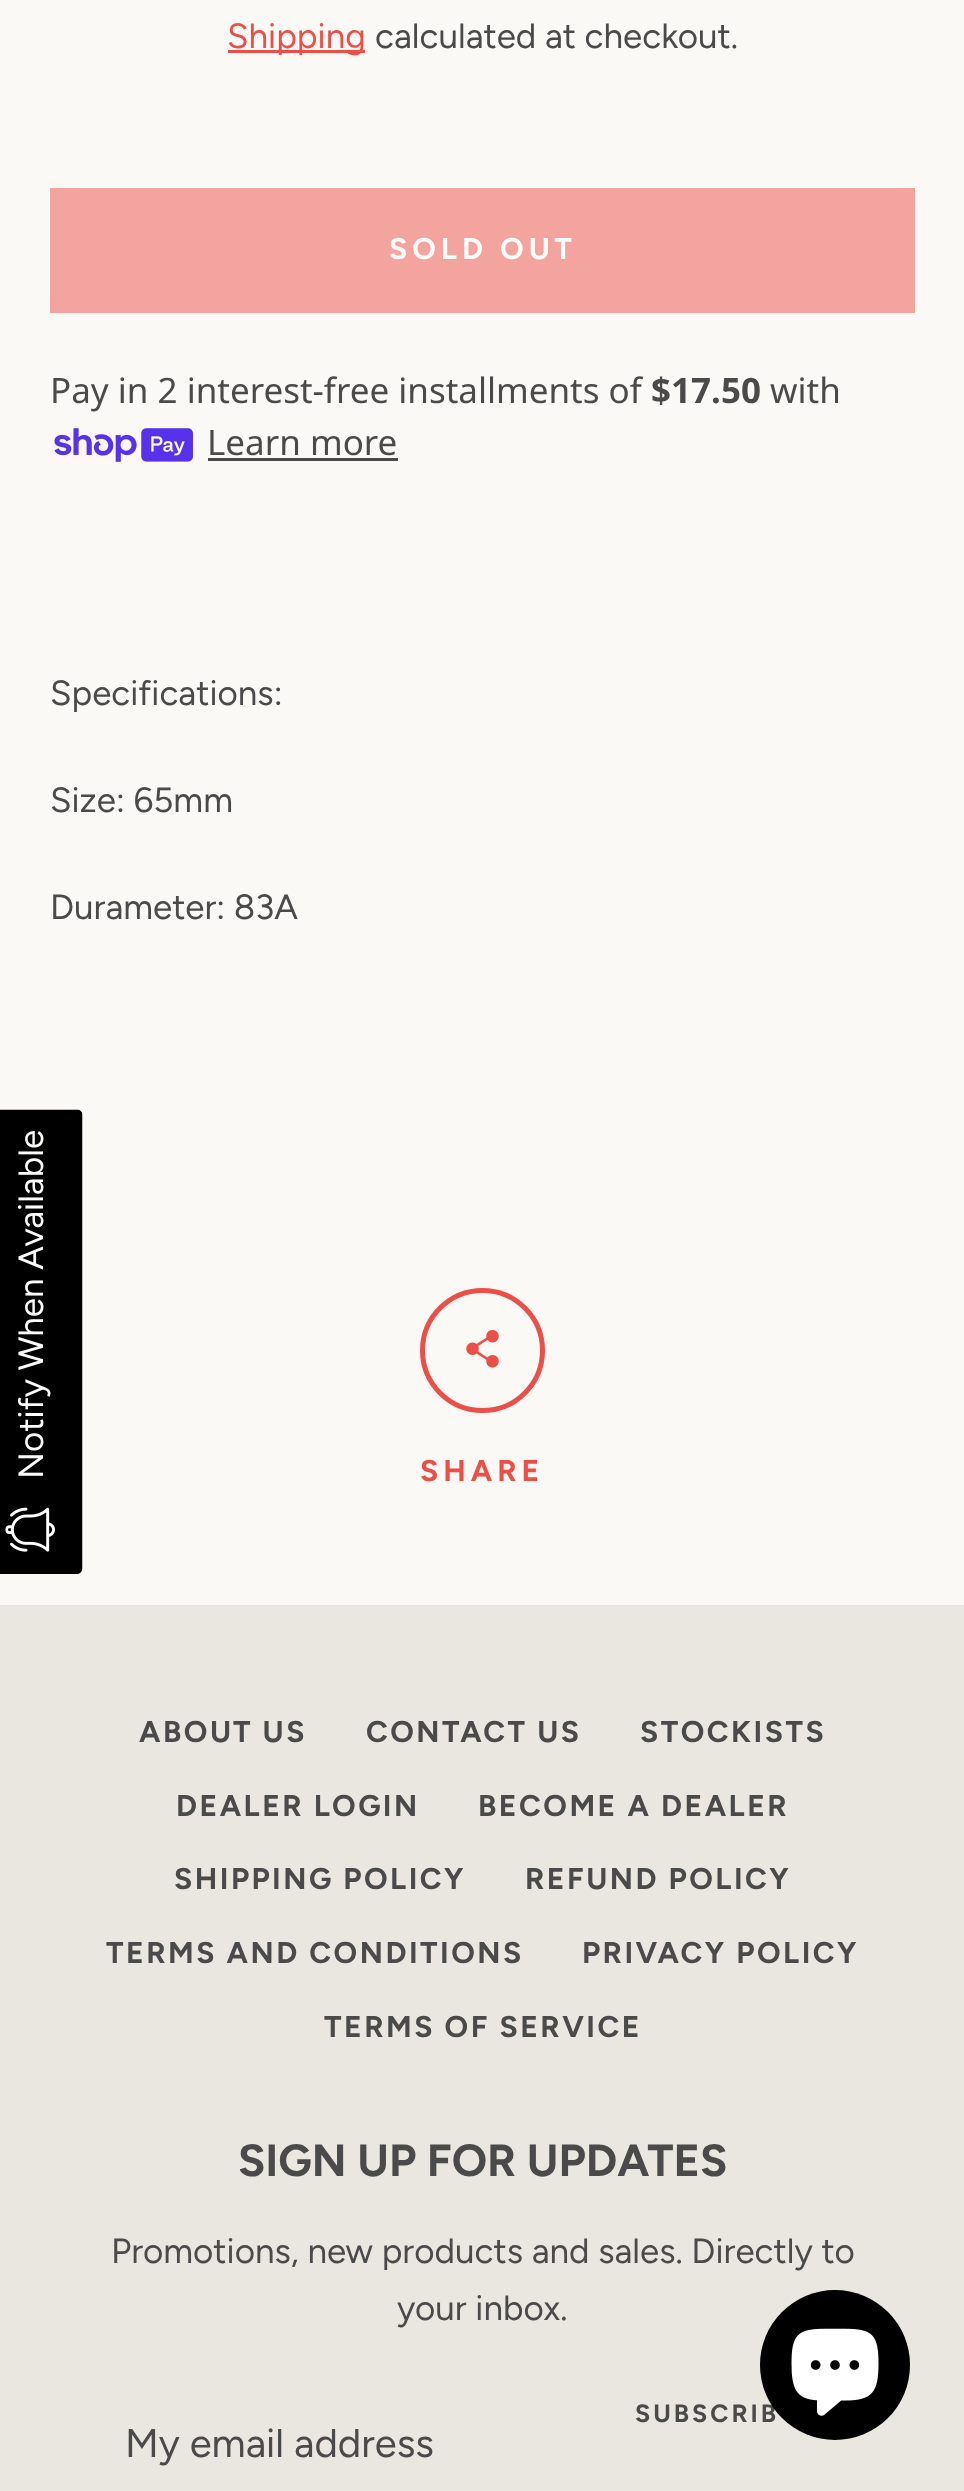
async function draw(canvas) {
  canvas.width = 964;
  canvas.height = 2491;
  const ctx = canvas.getContext('2d');
  ctx.miterLimit = 4;
  ctx.fontKerning = 'normal';
  function label(s, x, y, font, color) {
    ctx.font = font;
    ctx.fillStyle = color;
    ctx.fillText(s, x, y);
  }
  function rect(x, y, w, h, color) {
    ctx.fillStyle = color;
    ctx.fillRect(x, y, w, h);
  }
  async function image(src, x, y, w, h) {
    const img = new Image();
    img.src = src;
    await img.decode();
    ctx.drawImage(img, x, y, w, h);
  }
  let path;

  rect(0, 0, 964, 2491, '#faf9f6');
  label('Shipping', 227, 48, '35px Figtree', '#eb4f47');
  rect(228, 50, 137, 3, '#eb4f47');
  label('calculated at checkout.', 375, 48, '35px Figtree', '#4a4a4a');
  rect(50, 188, 865, 125, '#f3a49f');
  ctx.letterSpacing = '5px';
  label('SOLD OUT', 389, 259, 'bold 30px Figtree', '#fdfcfb');
  ctx.letterSpacing = '0px';
  label('Pay in 2 interest-free installments of', 50, 403, '35px Noto Sans', '#4a4a4a');
  label('$17.50', 651, 403, 'bold 35px Noto Sans', '#4a4a4a');
  label('with', 770, 403, '35px Noto Sans', '#4a4a4a');
  await image('assets/img1.png', 54, 428, 139, 34);
  label('Learn more', 207, 455, '35px Noto Sans', '#4a4a4a');
  rect(208, 458, 190, 3, '#4a4a4a');
  ctx.fillStyle = '#000';
  path = new Path2D('M-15 1569V1115C-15 1112-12 1110-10 1110H77C80 1110 82 1112 82 1115V1569C82 1571 80 1574 77 1574H-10C-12 1574-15 1571-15 1569Z');
  ctx.fill(path);
  path = new Path2D('M-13.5 1568.5V1114.5C-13.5 1112.5-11.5 1111-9.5 1111H77.5C79.5 1111 81 1112.5 81 1114.5V1568.5C81 1570.5 79.5 1572.5 77.5 1572.5H-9.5C-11.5 1572.5-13.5 1570.5-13.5 1568.5Z');
  ctx.strokeStyle = '#000';
  ctx.lineWidth = 2.5;
  ctx.stroke(path);
  ctx.font = '35px Figtree';
  ctx.fillStyle = '#fdfcfb';
  ctx.save();
  ctx.translate(43, 1479);
  ctx.rotate(-90 * Math.PI / 180);
  ctx.fillText('Notify When Available', 0, 0);
  ctx.restore();
  await image('assets/img2.png', 5, 1507, 50, 45);
  label('Specifications:', 50, 705, '35px Figtree', '#4a4a4a');
  label('Size: 65mm', 50, 812, '35px Figtree', '#4a4a4a');
  label('Durameter: 83A', 50, 919, '35px Figtree', '#4a4a4a');
  ctx.beginPath();
  ctx.arc(482.5, 1350.5, 60, 0, 2 * Math.PI);
  ctx.strokeStyle = '#eb4f47';
  ctx.lineWidth = 5;
  ctx.stroke();
  await image('assets/img3.png', 466, 1330, 33, 38);
  ctx.letterSpacing = '5px';
  label('SHARE', 420, 1481, 'bold 30px Figtree', '#eb4f47');
  rect(0, 1605, 964, 886, '#eae7e0');
  ctx.letterSpacing = '2.5px';
  label('ABOUT US', 139, 1742, 'bold 30px Figtree', '#4a4a4a');
  label('CONTACT US', 366, 1742, 'bold 30px Figtree', '#4a4a4a');
  label('STOCKISTS', 640, 1742, 'bold 30px Figtree', '#4a4a4a');
  label('DEALER LOGIN', 176, 1816, 'bold 30px Figtree', '#4a4a4a');
  label('BECOME A DEALER', 478, 1816, 'bold 30px Figtree', '#4a4a4a');
  label('SHIPPING POLICY', 174, 1889, 'bold 30px Figtree', '#4a4a4a');
  label('REFUND POLICY', 525, 1889, 'bold 30px Figtree', '#4a4a4a');
  label('TERMS AND CONDITIONS', 106, 1963, 'bold 30px Figtree', '#4a4a4a');
  label('PRIVACY POLICY', 582, 1963, 'bold 30px Figtree', '#4a4a4a');
  label('TERMS OF SERVICE', 324, 2037, 'bold 30px Figtree', '#4a4a4a');
  ctx.letterSpacing = '0px';
  label('SIGN UP FOR UPDATES', 238, 2176, 'bold 45px Figtree', '#4a4a4a');
  label('Promotions, new products and sales. Directly to', 111, 2263, '35px Figtree', '#4a4a4a');
  label('your inbox.', 397, 2320, '35px Figtree', '#4a4a4a');
  ctx.letterSpacing = '3px';
  label('SUBSCRIB', 635, 2422, 'bold 25px Figtree', '#4a4a4a');
  ctx.letterSpacing = '0px';
  label('My email address', 125, 2457, '40px Figtree', '#4a4a4a');
  ctx.fillStyle = '#000';
  ctx.beginPath();
  ctx.arc(835, 2365, 75, 0, 2 * Math.PI);
  ctx.fill();
  await image('assets/img4.png', 791, 2328, 88, 88);
}

draw(document.querySelector('canvas'));
